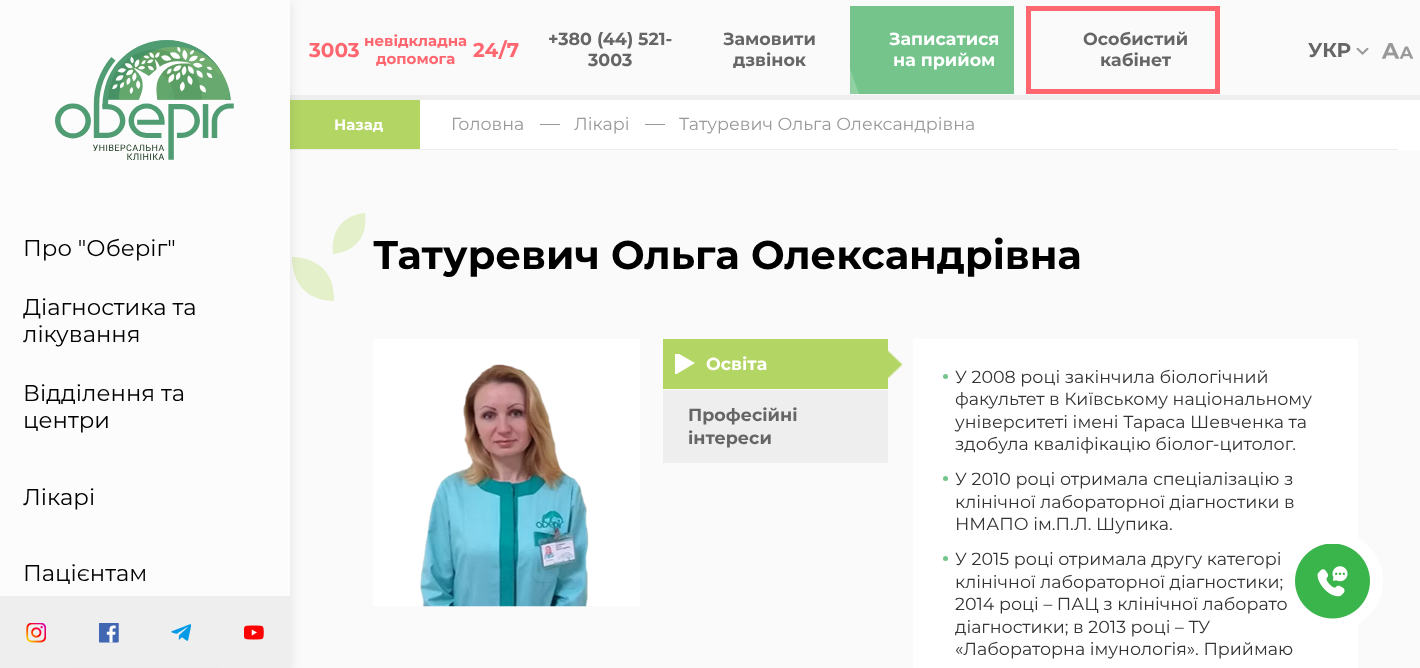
async function draw(canvas) {
  canvas.width = 1420;
  canvas.height = 668;
  const ctx = canvas.getContext('2d');
  ctx.miterLimit = 4;
  ctx.fontKerning = 'normal';
  function label(s, x, y, font, color) {
    ctx.font = font;
    ctx.fillStyle = color;
    ctx.fillText(s, x, y);
  }
  function rect(x, y, w, h, color) {
    ctx.fillStyle = color;
    ctx.fillRect(x, y, w, h);
  }
  async function image(src, x, y, w, h) {
    const img = new Image();
    img.src = src;
    await img.decode();
    ctx.drawImage(img, x, y, w, h);
  }
  let path;

  rect(0, 0, 1420, 668, '#fff');
  rect(290, 0, 1130, 95, '#fafafa');
  label('3003', 309, 57, 'bold 20px Montserrat', '#ff6770');
  label('невідкладна', 364, 46, 'bold 15px Montserrat', '#ff6770');
  label('допомога', 376, 64, 'bold 15px Montserrat', '#ff6770');
  label('24/7', 473, 57, 'bold 20px Montserrat', '#ff6770');
  rect(290, 95, 1130, 5, '#eee');
  label('+380 (44) 521-', 548, 45, 'bold 17.5px Montserrat', '#666');
  label('3003', 588, 66, 'bold 17.5px Montserrat', '#666');
  label('Замовити', 723, 45, 'bold 17.5px Montserrat', '#666');
  label('дзвінок', 733, 66, 'bold 17.5px Montserrat', '#666');
  rect(850, 6, 164, 88, '#74c48c');
  label('Записатися', 889, 45, 'bold 17.5px Montserrat', '#fff');
  label('на прийом', 893, 66, 'bold 17.5px Montserrat', '#fff');
  ctx.save();
  ctx.beginPath();
  ctx.rect(850, 6, 164, 88);
  ctx.clip();
  ctx.fillStyle = '#90d0a3';
  path = new Path2D('M727 6H827L872 129H772Z');
  ctx.fill(path);
  ctx.restore();
  ctx.strokeStyle = '#ff6770';
  ctx.lineWidth = 5;
  ctx.strokeRect(1028.5, 8.5, 189, 83);
  label('Особистий', 1083, 45, 'bold 17.5px Montserrat', '#666');
  label('кабінет', 1100, 66, 'bold 17.5px Montserrat', '#666');
  label('УКР', 1308, 57, 'bold 20px Montserrat', '#666');
  await image('assets/img1.png', 1356, 48, 13, 7);
  await image('assets/img2.png', 1381, 43, 33, 16);
  rect(290, 100, 130, 49, '#b3d564');
  rect(290, 149, 1108, 1, '#eee');
  rect(290, 150, 1130, 518, '#fafafa');
  ctx.fillStyle = '#e4f0c9';
  path = new Path2D('M334 301C289 300 292 257 292 257C292 257 335 255 334 301Z');
  ctx.fill(path);
  ctx.fillStyle = '#0000001a';
  ctx.filter = 'blur(6px)';
  ctx.beginPath();
  ctx.rect(0, 3, 290, 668);
  ctx.fill();
  ctx.filter = 'none';
  rect(0, 0, 290, 596, '#fcfcfc');
  await image('assets/img3.png', 55, 40, 179, 120);
  label('Про "Оберіг"', 23, 256, '22.75px Montserrat', '#000');
  label('Діагностика та', 23, 315, '22.75px Montserrat', '#000');
  label('лікування', 23, 342, '22.75px Montserrat', '#000');
  label('Відділення та', 23, 401, '22.75px Montserrat', '#000');
  label('центри', 23, 428, '22.75px Montserrat', '#000');
  label('Лікарі', 23, 505, '22.75px Montserrat', '#000');
  label('Пацієнтам', 23, 581, '22.75px Montserrat', '#000');
  rect(0, 596, 73, 72, '#eee');
  await image('assets/img4.png', 26, 623, 20, 20);
  rect(73, 596, 145, 71, '#eee');
  await image('assets/img5.png', 99, 623, 20, 20);
  rect(218, 596, 72, 72, '#eee');
  await image('assets/img6.png', 244, 625, 20, 15);
  await image('assets/img7.png', 171, 624, 20, 17);
  label('Назад', 334, 130, 'bold 15px Montserrat', '#fff');
  label('Головна', 451, 130, '17.5px Montserrat', '#999');
  rect(540, 124, 20, 1, '#999');
  label('Лікарі', 574, 130, '17.5px Montserrat', '#999');
  rect(645, 124, 20, 1, '#999');
  label('Татуревич Ольга Олександрівна', 679, 130, '17.5px Montserrat', '#999');
  ctx.fillStyle = '#e4f0c9';
  path = new Path2D('M365 213C327 217 333 254 333 254C333 254 370 252 365 213Z');
  ctx.fill(path);
  label('Татуревич Ольга Олександрівна', 373, 269, 'bold 40px Montserrat', '#000');
  rect(373, 339, 267, 267, '#fff');
  await image('assets/img8.png', 420, 364, 169, 243);
  rect(663, 339, 225, 50, '#b3d564');
  ctx.save();
  ctx.beginPath();
  ctx.rect(675, 354, 20, 20);
  ctx.clip();
  ctx.fillStyle = '#fff';
  path = new Path2D('M695 363L675 375V351.5Z');
  ctx.fill(path);
  ctx.restore();
  label('Освіта', 706, 370, 'bold 17.5px Montserrat', '#fff');
  await image('assets/img9.png', 888, 350, 15, 29);
  rect(663, 390, 225, 73, '#eee');
  label('Професійні', 688, 421, 'bold 17.5px Montserrat', '#666');
  label('інтереси', 688, 444, 'bold 17.5px Montserrat', '#666');
  rect(913, 339, 445, 329, '#fff');
  ctx.fillStyle = '#74c48c';
  ctx.beginPath();
  ctx.arc(945.5, 376.5, 2.5, 0, 2 * Math.PI);
  ctx.fill();
  label('У 2008 році закінчила біологічний', 955, 383, '17.5px Montserrat', '#333');
  label('факультет в Київському національному', 955, 405, '17.5px Montserrat', '#333');
  label('університеті імені Тараса Шевченка та', 955, 428, '17.5px Montserrat', '#333');
  label('здобула кваліфікацію біолог-цитолог.', 955, 450, '17.5px Montserrat', '#333');
  ctx.fillStyle = '#74c48c';
  ctx.beginPath();
  ctx.arc(945.5, 478.5, 2.5, 0, 2 * Math.PI);
  ctx.fill();
  label('У 2010 році отримала спеціалізацію з', 955, 485, '17.5px Montserrat', '#333');
  label('клінічної лабораторної діагностики в', 955, 508, '17.5px Montserrat', '#333');
  label('НМАПО ім.П.Л. Шупика.', 955, 530, '17.5px Montserrat', '#333');
  ctx.fillStyle = '#74c48c';
  ctx.beginPath();
  ctx.arc(945.5, 558.5, 2.5, 0, 2 * Math.PI);
  ctx.fill();
  label('У 2015 році отримала другу категорі', 955, 565, '17.5px Montserrat', '#333');
  label('клінічної лабораторної діагностики;', 955, 588, '17.5px Montserrat', '#333');
  label('2014 році – ПАЦ з клінічної лаборато', 955, 610, '17.5px Montserrat', '#333');
  label('діагностики; в 2013 році – ТУ', 955, 633, '17.5px Montserrat', '#333');
  label('«Лабораторна імунологія». Приймаю', 955, 655, '17.5px Montserrat', '#333');
  ctx.fillStyle = '#fff';
  ctx.beginPath();
  ctx.arc(1333, 581, 50, 0, 2 * Math.PI);
  ctx.fill();
  await image('assets/img10.png', 1295, 544, 75, 75);
}

draw(document.querySelector('canvas'));
